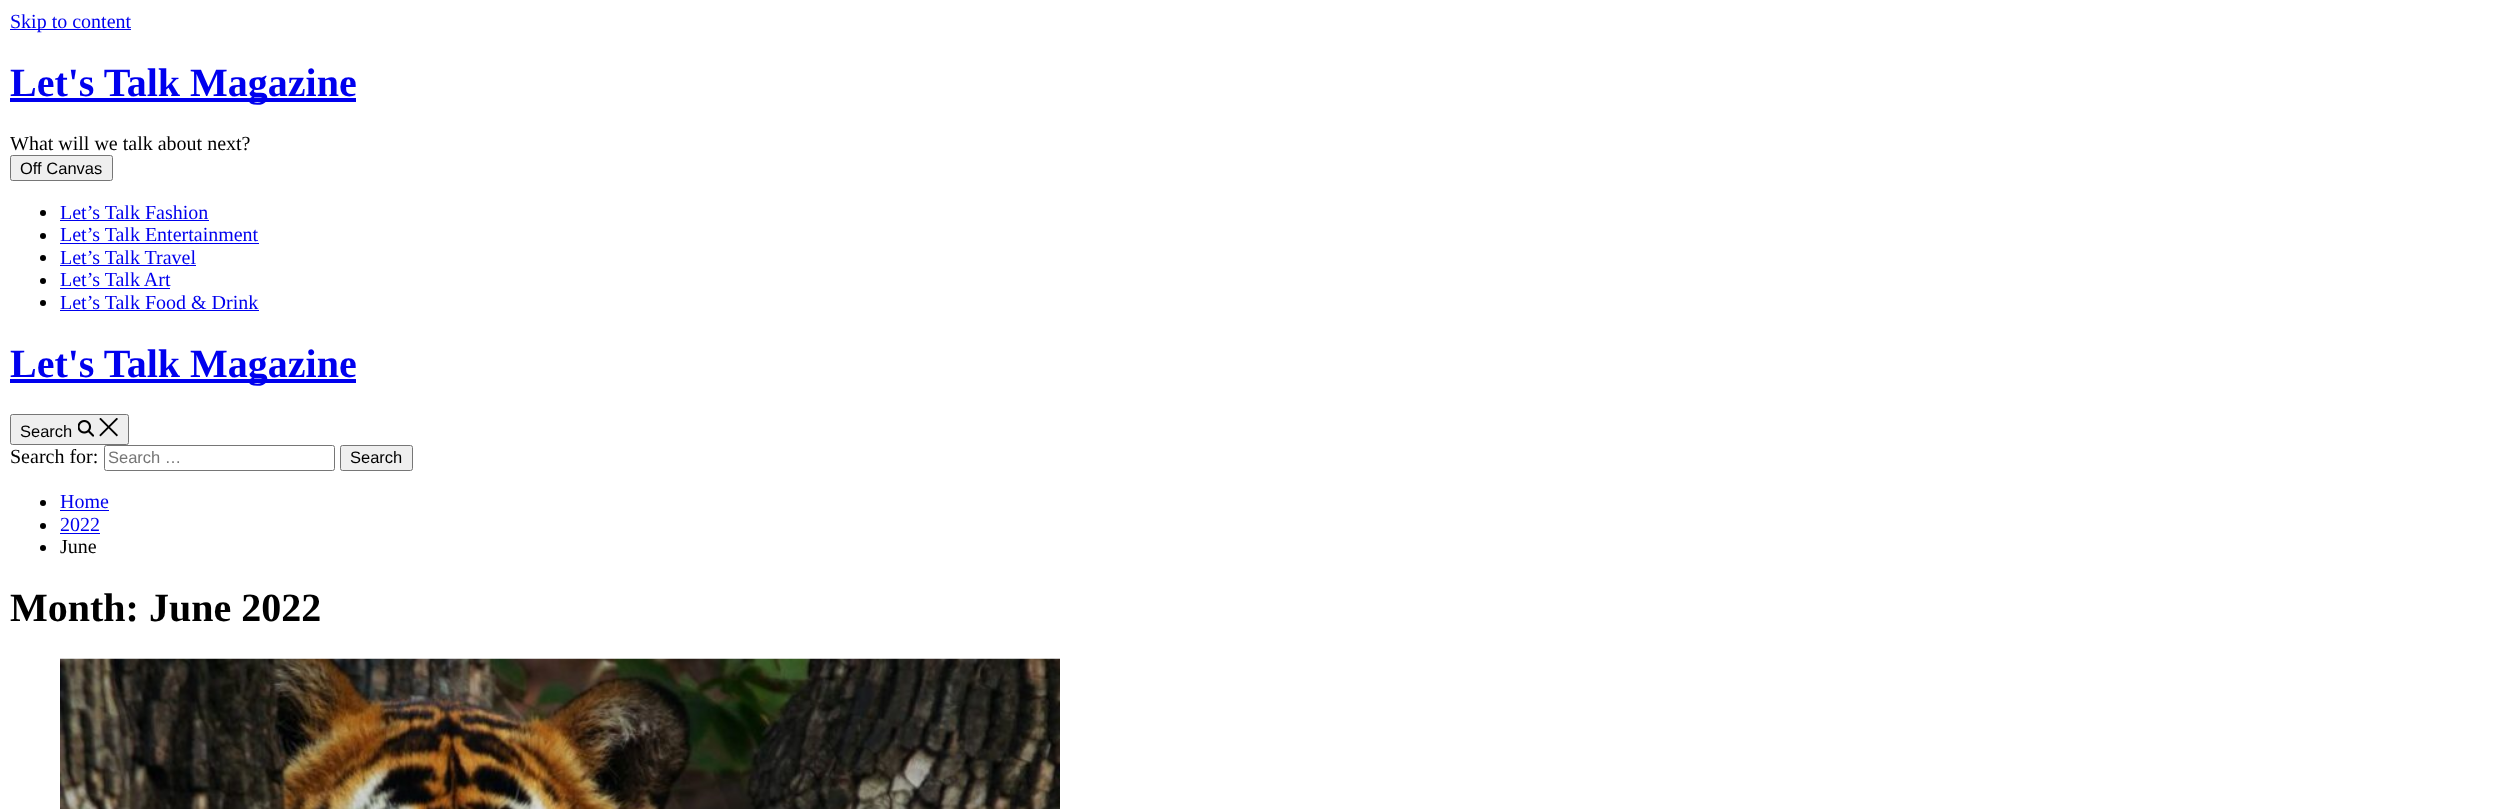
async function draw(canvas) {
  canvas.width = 2505;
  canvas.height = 809;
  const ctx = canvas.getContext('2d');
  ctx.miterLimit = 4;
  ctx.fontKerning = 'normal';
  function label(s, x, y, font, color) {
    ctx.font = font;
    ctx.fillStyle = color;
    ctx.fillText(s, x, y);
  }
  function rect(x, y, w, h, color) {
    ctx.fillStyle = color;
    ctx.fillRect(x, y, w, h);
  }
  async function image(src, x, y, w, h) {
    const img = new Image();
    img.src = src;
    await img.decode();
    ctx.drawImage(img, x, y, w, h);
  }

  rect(0, 0, 2505, 809, '#fff');
  rect(10, 29, 121, 1, '#00e');
  label('Skip to content', 10, 28, '20px Liberation Serif', '#00e');
  rect(10, 98, 346, 4, '#00e');
  label('Let\'s Talk Magazine', 10, 96, 'bold 40px Liberation Serif', '#00e');
  label('What will we talk about next?', 10, 150, '20px Liberation Serif', '#000');
  ctx.fillStyle = '#efefef';
  ctx.beginPath();
  ctx.roundRect(10.5, 155.5, 102, 25, 2);
  ctx.fill();
  ctx.strokeStyle = '#767676';
  ctx.stroke();
  label('Off Canvas', 20, 174, '16.5px Liberation Sans', '#000');
  ctx.beginPath();
  ctx.arc(43, 213, 3, 0, 2 * Math.PI);
  ctx.fill();
  label('Let’s Talk Fashion', 60, 219, '20px Liberation Serif', '#00e');
  rect(60, 220, 149, 1, '#00e');
  ctx.fillStyle = '#000';
  ctx.beginPath();
  ctx.arc(43, 236, 3, 0, 2 * Math.PI);
  ctx.fill();
  label('Let’s Talk Entertainment', 60, 241, '20px Liberation Serif', '#00e');
  rect(60, 243, 199, 1, '#00e');
  ctx.fillStyle = '#000';
  ctx.beginPath();
  ctx.arc(43, 258, 3, 0, 2 * Math.PI);
  ctx.fill();
  label('Let’s Talk Travel', 60, 264, '20px Liberation Serif', '#00e');
  rect(60, 265, 136, 1, '#00e');
  ctx.fillStyle = '#000';
  ctx.beginPath();
  ctx.arc(43, 281, 3, 0, 2 * Math.PI);
  ctx.fill();
  label('Let’s Talk Art', 60, 286, '20px Liberation Serif', '#00e');
  rect(60, 288, 110, 1, '#00e');
  ctx.fillStyle = '#000';
  ctx.beginPath();
  ctx.arc(43, 303, 3, 0, 2 * Math.PI);
  ctx.fill();
  label('Let’s Talk Food & Drink', 60, 309, '20px Liberation Serif', '#00e');
  rect(60, 310, 199, 1, '#00e');
  rect(10, 379, 346, 4, '#00e');
  label('Let\'s Talk Magazine', 10, 377, 'bold 40px Liberation Serif', '#00e');
  ctx.fillStyle = '#efefef';
  ctx.beginPath();
  ctx.roundRect(10.5, 414.5, 118, 30, 2);
  ctx.fill();
  ctx.stroke();
  label('Search', 20, 437, '16.5px Liberation Sans', '#000');
  await image('assets/img1.png', 78, 420, 16, 17);
  await image('assets/img2.png', 99, 418, 19, 19);
  label('Search for:', 10, 463, '20px Liberation Serif', '#000');
  ctx.beginPath();
  ctx.roundRect(104.5, 445.5, 230, 25, 2);
  ctx.stroke();
  label('Search …', 108, 463, '16.5px Liberation Sans', '#757575');
  ctx.fillStyle = '#efefef';
  ctx.beginPath();
  ctx.roundRect(340.5, 445.5, 72, 25, 2);
  ctx.fill();
  ctx.stroke();
  label('Search', 350, 463, '16.5px Liberation Sans', '#000');
  ctx.beginPath();
  ctx.arc(43, 503, 3, 0, 2 * Math.PI);
  ctx.fill();
  label('Home', 60, 508, '20px Liberation Serif', '#00e');
  rect(60, 510, 49, 1, '#00e');
  ctx.fillStyle = '#000';
  ctx.beginPath();
  ctx.arc(43, 526, 3, 0, 2 * Math.PI);
  ctx.fill();
  label('2022', 60, 531, '20px Liberation Serif', '#00e');
  rect(60, 533, 40, 1, '#00e');
  ctx.fillStyle = '#000';
  ctx.beginPath();
  ctx.arc(43, 548, 3, 0, 2 * Math.PI);
  ctx.fill();
  label('June', 60, 553, '20px Liberation Serif', '#000');
  label('Month: June 2022', 10, 621, 'bold 40px Liberation Serif', '#000');
  await image('assets/img3.png', 60, 658, 1000, 151);
}

draw(document.querySelector('canvas'));
